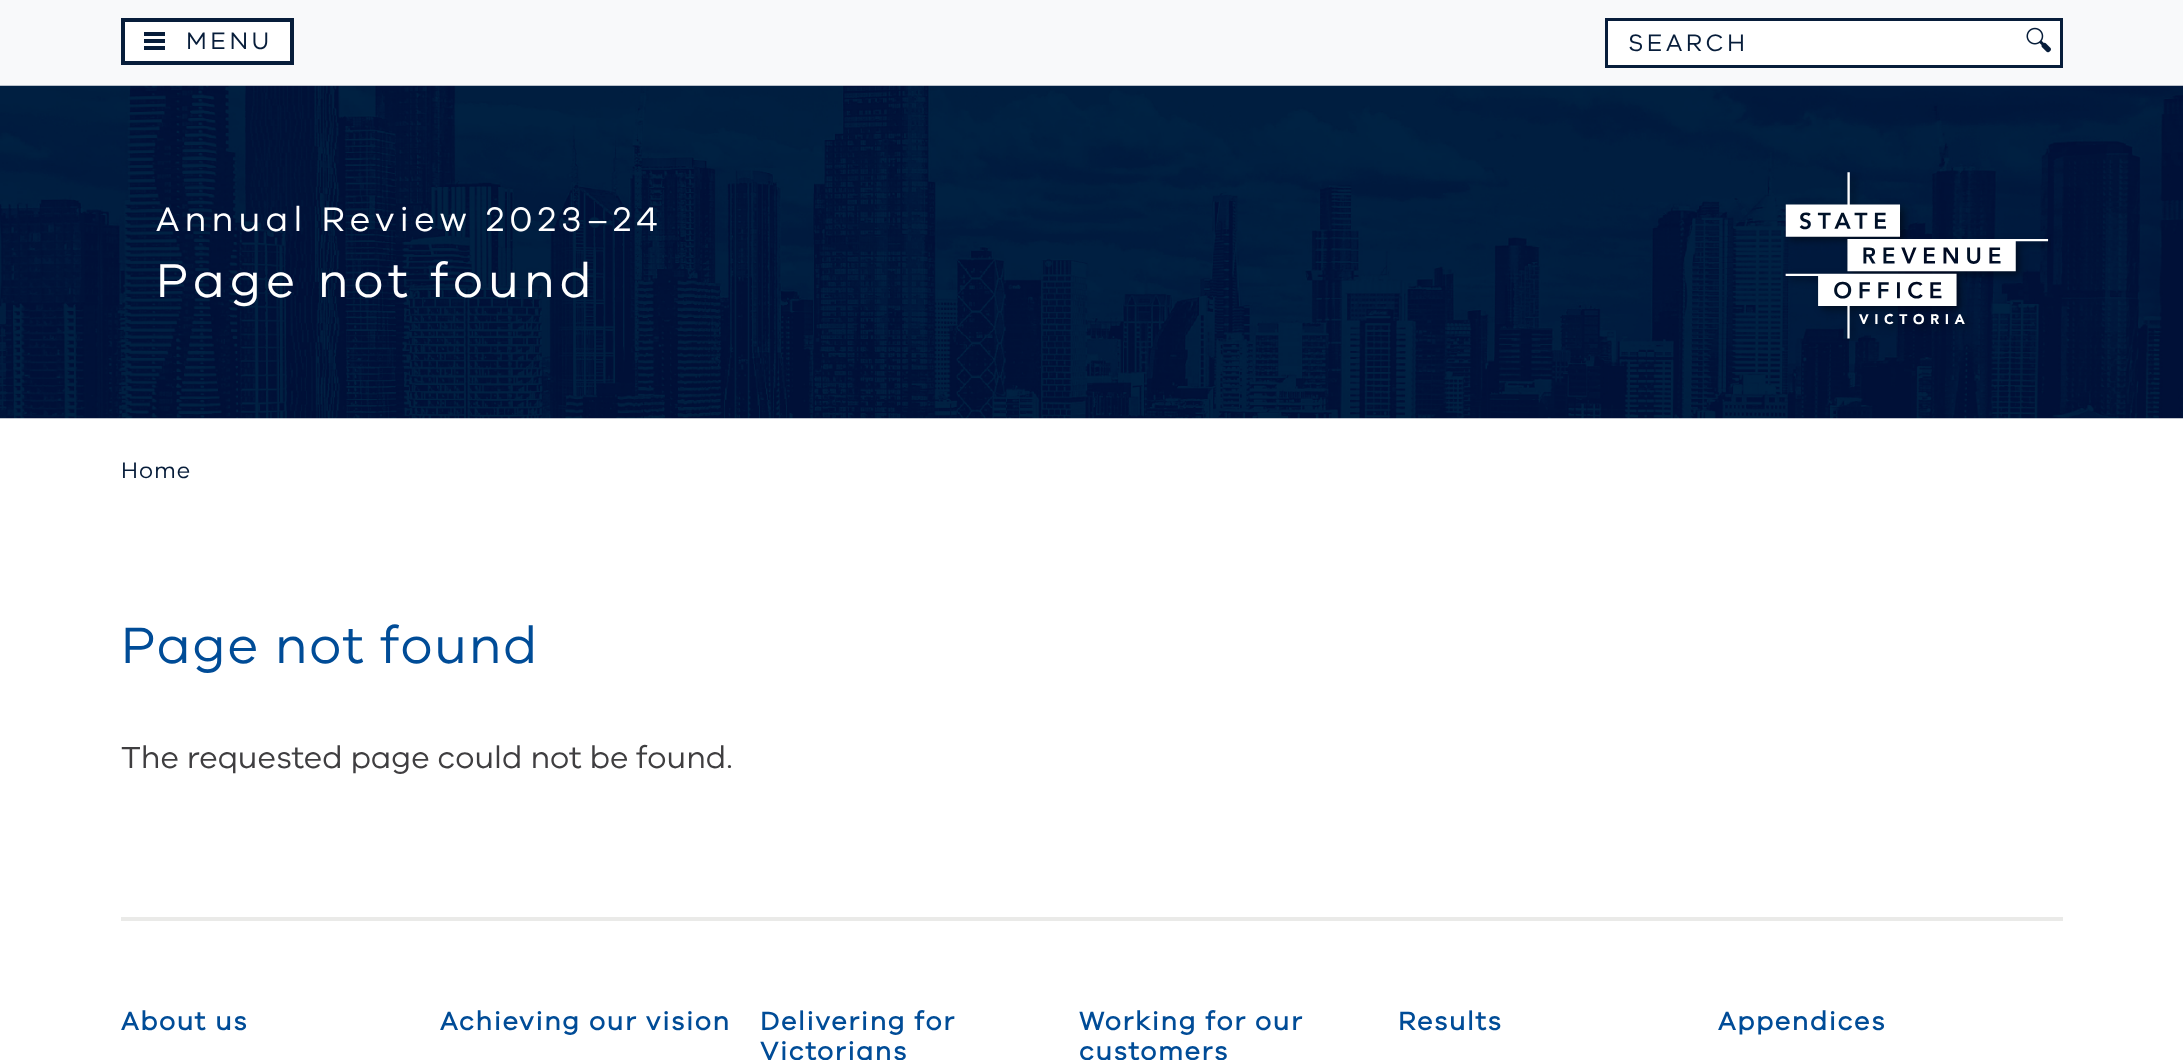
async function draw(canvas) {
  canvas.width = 2183;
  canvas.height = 1060;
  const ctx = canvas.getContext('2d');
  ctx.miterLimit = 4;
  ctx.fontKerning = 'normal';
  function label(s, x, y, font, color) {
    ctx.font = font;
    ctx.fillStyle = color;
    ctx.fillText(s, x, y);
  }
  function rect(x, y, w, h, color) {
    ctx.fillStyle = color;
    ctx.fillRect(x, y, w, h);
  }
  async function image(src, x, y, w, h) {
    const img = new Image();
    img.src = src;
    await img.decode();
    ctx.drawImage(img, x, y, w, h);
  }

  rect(0, 0, 2183, 1060, '#fff');
  rect(0, 0, 2183, 86, '#f8f9fa');
  ctx.fillStyle = '#fff';
  ctx.beginPath();
  ctx.rect(123, 20, 169, 43);
  ctx.fill();
  ctx.strokeStyle = '#071d3a';
  ctx.lineWidth = 4;
  ctx.stroke();
  rect(144, 32, 21, 4, '#071d3a');
  rect(144, 46, 21, 4, '#071d3a');
  ctx.letterSpacing = '3.5px';
  label('MENU', 186, 49, '24.5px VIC', '#071d3a');
  rect(144, 39, 21, 4, '#071d3a');
  ctx.strokeRect(1607, 20, 454, 46);
  rect(1608, 21, 452, 44, '#fff');
  label('SEARCH', 1628, 51, '24.5px VIC', '#071d3a');
  await image('assets/img1.png', 2026, 27, 25, 26);
  await image('assets/img2.png', 0, 85, 2183, 334);
  ctx.letterSpacing = '5.25px';
  label('Annual Review 2023–24', 156, 231, '35px VIC', '#fff');
  label('Page not found', 156, 297, '49px VIC', '#fff');
  await image('assets/img3.png', 1785, 172, 266, 169);
  ctx.letterSpacing = '1px';
  label('Home', 121, 478, '23px VIC', '#071d3a');
  ctx.letterSpacing = '1.75px';
  label('Page not found', 121, 663, '52.5px VIC', '#004c97');
  ctx.letterSpacing = '0px';
  label('The requested page could not be found.', 121, 768, '31.5px VIC', '#3f3e40');
  rect(121, 917, 1942, 4, '#eaeae8');
  ctx.letterSpacing = '1.75px';
  label('About us', 121, 1030, 'bold 26.25px VIC', '#004c97');
  label('Achieving our vision', 440, 1030, 'bold 26.25px VIC', '#004c97');
  label('Delivering for', 760, 1030, 'bold 26.25px VIC', '#004c97');
  label('Victorians', 760, 1060, 'bold 26.25px VIC', '#004c97');
  label('Working for our', 1079, 1030, 'bold 26.25px VIC', '#004c97');
  label('customers', 1079, 1060, 'bold 26.25px VIC', '#004c97');
  label('Results', 1398, 1030, 'bold 26.25px VIC', '#004c97');
  label('Appendices', 1718, 1030, 'bold 26.25px VIC', '#004c97');
}

draw(document.querySelector('canvas'));
